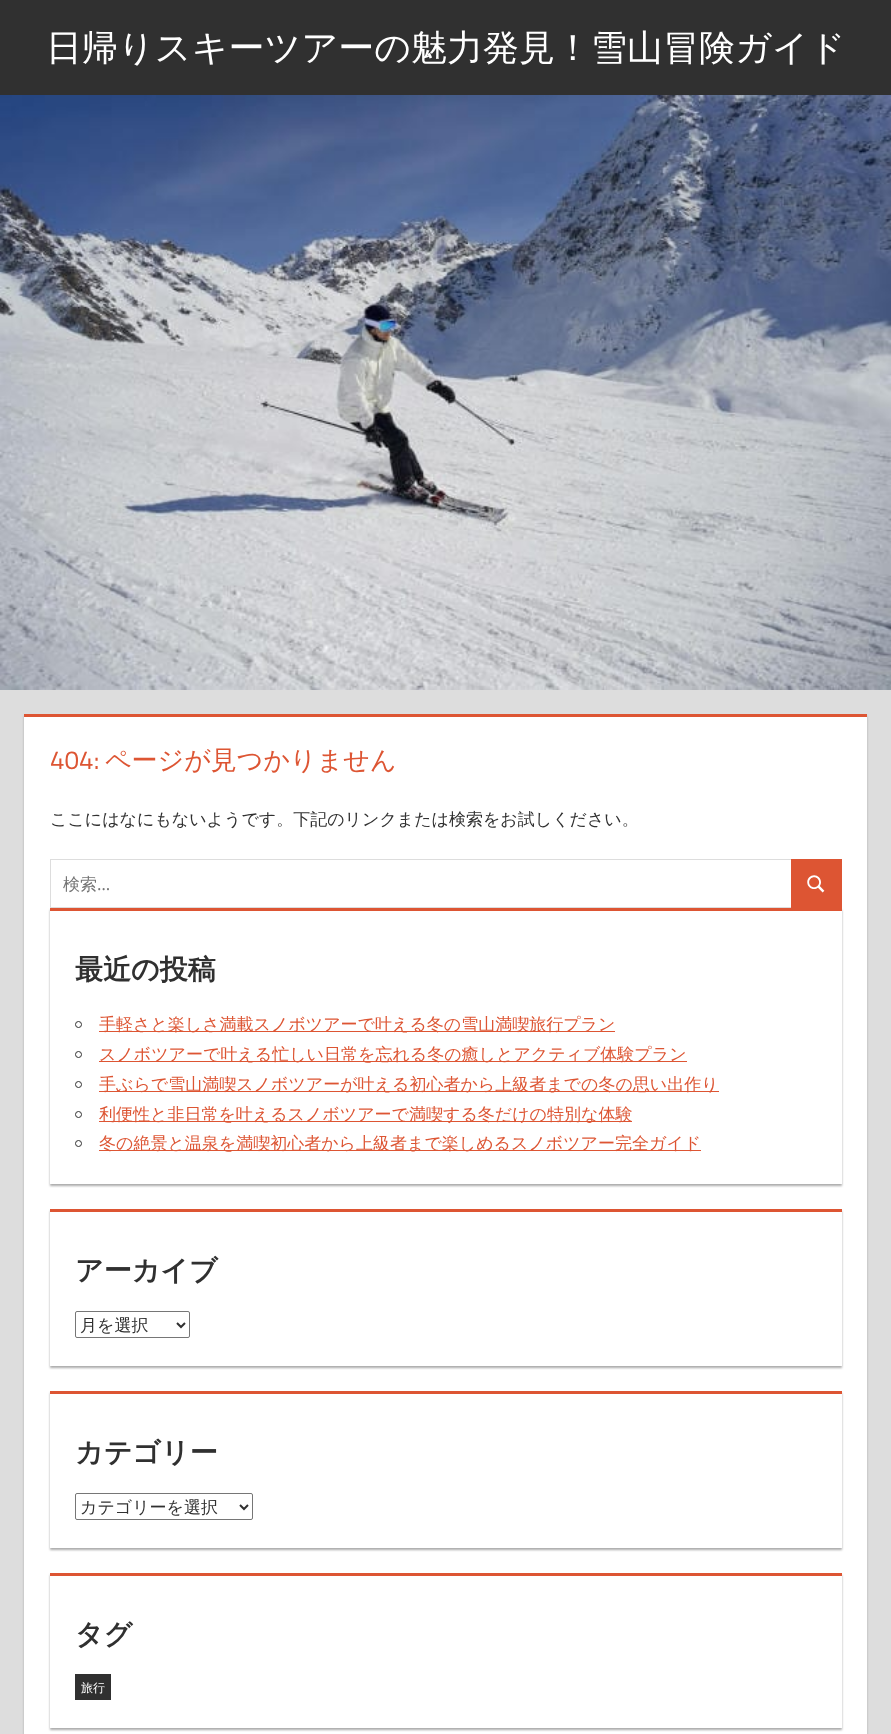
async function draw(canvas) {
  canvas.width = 891;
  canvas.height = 1734;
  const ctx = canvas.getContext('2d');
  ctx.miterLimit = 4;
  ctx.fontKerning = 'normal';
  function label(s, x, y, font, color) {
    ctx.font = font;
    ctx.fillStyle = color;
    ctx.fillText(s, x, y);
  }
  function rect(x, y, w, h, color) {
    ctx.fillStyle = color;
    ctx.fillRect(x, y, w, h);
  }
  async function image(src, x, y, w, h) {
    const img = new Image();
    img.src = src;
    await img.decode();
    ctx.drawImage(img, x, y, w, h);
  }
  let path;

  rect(0, 0, 891, 1734, '#ddd');
  rect(0, 0, 891, 95, '#303030');
  label('日帰りスキーツアーの魅力発見！雪山冒険ガイド', 46, 60, '500 36px WenQuanYi Zen Hei', '#fff');
  await image('assets/img1.png', 0, 95, 891, 595);
  ctx.fillStyle = '#aaa';
  ctx.filter = 'blur(1px)';
  ctx.beginPath();
  ctx.rect(24, 716, 843, 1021);
  ctx.fill();
  ctx.filter = 'none';
  rect(24, 717, 843, 1017, '#fff');
  rect(24, 714, 843, 3, '#d53');
  label('404:', 50, 769, '26px Titillium Web', '#d53');
  label('ページが見つかりません', 105, 769, '500 26px WenQuanYi Zen Hei', '#d53');
  label('ここにはなにもないようです。下記のリンクまたは検索をお試しください。', 50, 825, '500 17px WenQuanYi Zen Hei', '#303030');
  ctx.save();
  path = new Path2D('M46 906H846V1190H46ZM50 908H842V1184H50Z');
  ctx.clip(path, 'evenodd');
  ctx.fillStyle = '#aaa';
  ctx.filter = 'blur(1px)';
  ctx.beginPath();
  ctx.rect(50, 910, 792, 276);
  ctx.fill();
  ctx.filter = 'none';
  ctx.restore();
  ctx.strokeStyle = '#ddd';
  ctx.strokeRect(50.5, 859.5, 741, 48);
  label('検索', 63, 890, '500 17px WenQuanYi Zen Hei', '#757575');
  label('…', 97, 890, '17px Open Sans', '#757575');
  rect(791, 859, 51, 49, '#d53');
  await image('assets/img2.png', 807, 875, 18, 18);
  rect(50, 908, 792, 3, '#d53');
  label('最近の投稿', 75, 979, 'bold 28px WenQuanYi Zen Hei', '#303030');
  ctx.beginPath();
  ctx.arc(78.5, 1024.5, 3, 0, 2 * Math.PI);
  ctx.strokeStyle = '#303030';
  ctx.stroke();
  rect(99, 1031, 516, 1, '#d53');
  label('手軽さと楽しさ満載スノボツアーで叶える冬の雪山満喫旅行プラン', 99, 1030, '500 17px WenQuanYi Zen Hei', '#d53');
  ctx.beginPath();
  ctx.arc(78.5, 1054.5, 3, 0, 2 * Math.PI);
  ctx.stroke();
  rect(99, 1061, 588, 1, '#d53');
  label('スノボツアーで叶える忙しい日常を忘れる冬の癒しとアクティブ体験プラン', 99, 1060, '500 17px WenQuanYi Zen Hei', '#d53');
  ctx.beginPath();
  ctx.arc(78.5, 1084.5, 3, 0, 2 * Math.PI);
  ctx.stroke();
  rect(99, 1091, 620, 1, '#d53');
  label('手ぶらで雪山満喫スノボツアーが叶える初心者から上級者までの冬の思い出作り', 99, 1090, '500 17px WenQuanYi Zen Hei', '#d53');
  ctx.beginPath();
  ctx.arc(78.5, 1114.5, 3, 0, 2 * Math.PI);
  ctx.stroke();
  rect(99, 1121, 533, 1, '#d53');
  label('利便性と非日常を叶えるスノボツアーで満喫する冬だけの特別な体験', 99, 1120, '500 17px WenQuanYi Zen Hei', '#d53');
  ctx.beginPath();
  ctx.arc(78.5, 1143.5, 3, 0, 2 * Math.PI);
  ctx.stroke();
  rect(99, 1150, 602, 1, '#d53');
  label('冬の絶景と温泉を満喫初心者から上級者まで楽しめるスノボツアー完全ガイド', 99, 1149, '500 17px WenQuanYi Zen Hei', '#d53');
  ctx.save();
  path = new Path2D('M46 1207H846V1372H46ZM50 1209H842V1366H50Z');
  ctx.clip(path, 'evenodd');
  ctx.fillStyle = '#aaa';
  ctx.filter = 'blur(1px)';
  ctx.beginPath();
  ctx.rect(50, 1211, 792, 157);
  ctx.fill();
  ctx.filter = 'none';
  ctx.restore();
  rect(50, 1209, 792, 3, '#d53');
  label('アーカイブ', 75, 1280, 'bold 28px WenQuanYi Zen Hei', '#303030');
  ctx.beginPath();
  ctx.roundRect(75.5, 1311.5, 114, 26, 1.5);
  ctx.strokeStyle = '#767676';
  ctx.stroke();
  path = new Path2D('M177 1323L181 1327L185 1323');
  ctx.strokeStyle = '#303030';
  ctx.lineWidth = 2;
  ctx.stroke(path);
  label('月を選択', 80, 1331, '500 17px WenQuanYi Zen Hei', '#303030');
  ctx.save();
  path = new Path2D('M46 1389H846V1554H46ZM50 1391H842V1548H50Z');
  ctx.clip(path, 'evenodd');
  ctx.fillStyle = '#aaa';
  ctx.filter = 'blur(1px)';
  ctx.beginPath();
  ctx.rect(50, 1393, 792, 157);
  ctx.fill();
  ctx.filter = 'none';
  ctx.restore();
  rect(50, 1391, 792, 3, '#d53');
  label('カテゴリー', 75, 1462, 'bold 28px WenQuanYi Zen Hei', '#303030');
  ctx.beginPath();
  ctx.roundRect(75.5, 1493.5, 177, 26, 1.5);
  ctx.strokeStyle = '#767676';
  ctx.lineWidth = 1;
  ctx.stroke();
  path = new Path2D('M240 1505L244 1509L248 1505');
  ctx.strokeStyle = '#303030';
  ctx.lineWidth = 2;
  ctx.stroke(path);
  label('カテゴリーを選択', 80, 1513, '500 17px WenQuanYi Zen Hei', '#303030');
  ctx.save();
  path = new Path2D('M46 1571H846V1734H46ZM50 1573H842V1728H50Z');
  ctx.clip(path, 'evenodd');
  ctx.fillStyle = '#aaa';
  ctx.filter = 'blur(1px)';
  ctx.beginPath();
  ctx.rect(50, 1575, 792, 155);
  ctx.fill();
  ctx.filter = 'none';
  ctx.restore();
  rect(50, 1573, 792, 3, '#d53');
  label('タグ', 75, 1644, 'bold 28px WenQuanYi Zen Hei', '#303030');
  rect(75, 1674, 36, 26, '#303030');
  label('旅行', 81, 1692, '500 12px WenQuanYi Zen Hei', '#fff');
}

draw(document.querySelector('canvas'));
